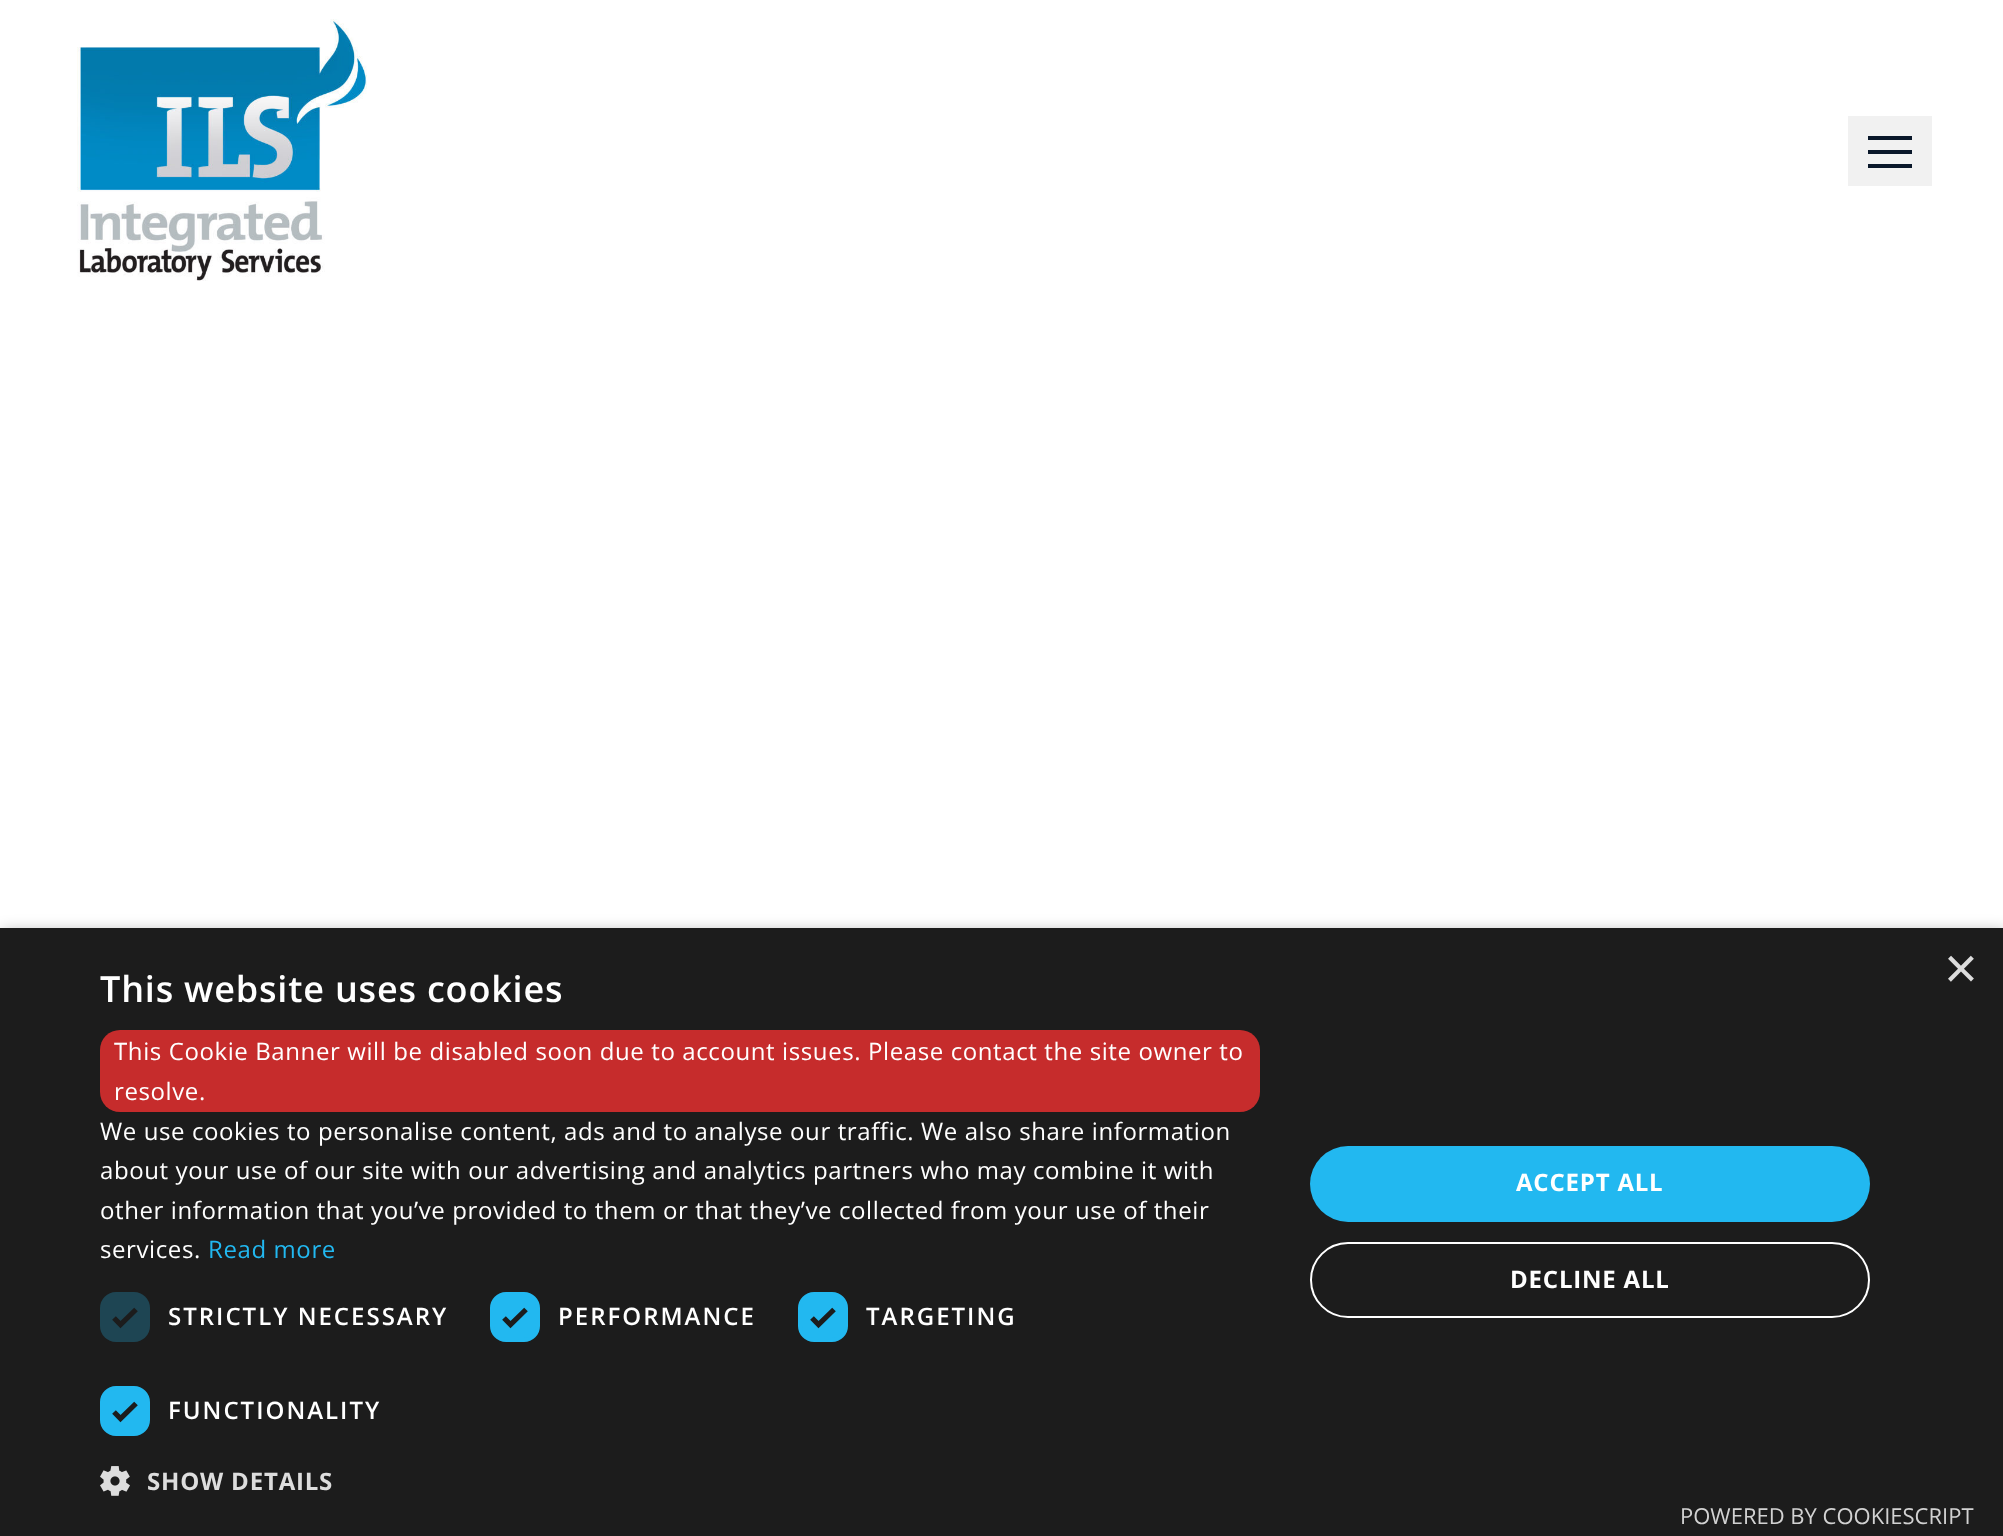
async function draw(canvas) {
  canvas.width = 2003;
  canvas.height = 1536;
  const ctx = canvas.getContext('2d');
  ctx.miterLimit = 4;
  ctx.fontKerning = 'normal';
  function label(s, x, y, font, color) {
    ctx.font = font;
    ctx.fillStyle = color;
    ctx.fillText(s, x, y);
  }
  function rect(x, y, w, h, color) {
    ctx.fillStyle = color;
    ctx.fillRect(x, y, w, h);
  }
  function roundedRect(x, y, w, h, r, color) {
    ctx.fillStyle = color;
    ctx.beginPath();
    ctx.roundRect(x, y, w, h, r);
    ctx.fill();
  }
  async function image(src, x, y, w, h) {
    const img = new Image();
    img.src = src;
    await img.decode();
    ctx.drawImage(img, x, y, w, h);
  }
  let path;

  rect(0, 0, 2003, 1536, '#fff');
  await image('assets/img1.png', 77, 19, 290, 262);
  rect(1848, 116, 84, 70, '#f1f1f1');
  rect(1868, 136, 44, 4, '#0a172a');
  rect(1868, 150, 44, 4, '#0a172a');
  rect(1868, 164, 44, 4, '#0a172a');
  ctx.fillStyle = '#00000059';
  ctx.filter = 'blur(8px)';
  ctx.beginPath();
  ctx.rect(2, 932, 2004, 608);
  ctx.fill();
  ctx.filter = 'none';
  rect(0, 928, 2003, 608, '#1c1c1c');
  label('×', 1944, 988, '58px Liberation Sans', '#ddd');
  ctx.letterSpacing = '0.8px';
  label('This website uses cookies', 100, 1002, '600 36px Open Sans', '#fff');
  roundedRect(100, 1030, 1160, 82, 20, '#c62c2c');
  ctx.letterSpacing = '0.6px';
  label('This Cookie Banner will be disabled soon due to account issues. Please contact the site owner to', 114, 1060, '24px Open Sans', '#fff');
  label('resolve.', 114, 1100, '24px Open Sans', '#fff');
  label('We use cookies to personalise content, ads and to analyse our traffic. We also share information', 100, 1140, '24px Open Sans', '#fff');
  label('about your use of our site with our advertising and analytics partners who may combine it with', 100, 1179, '24px Open Sans', '#fff');
  label('other information that you’ve provided to them or that they’ve collected from your use of their', 100, 1219, '24px Open Sans', '#fff');
  label('services.', 100, 1258, '24px Open Sans', '#fff');
  label('Read more', 208, 1258, '24px Open Sans', '#22b8f0');
  roundedRect(100, 1292, 50, 50, 16, '#1e4553');
  path = new Path2D('M114 1318L120.5 1324.5L136 1309.5');
  ctx.strokeStyle = '#1c1c1c';
  ctx.lineWidth = 5.2;
  ctx.stroke(path);
  ctx.letterSpacing = '2px';
  label('STRICTLY NECESSARY', 168, 1325, '600 24px Open Sans', '#fff');
  ctx.fillStyle = '#22b8f0';
  ctx.beginPath();
  ctx.roundRect(492, 1294, 46, 46, 14);
  ctx.fill();
  ctx.strokeStyle = '#22b8f0';
  ctx.lineWidth = 4;
  ctx.stroke();
  path = new Path2D('M504 1318L510.5 1324.5L526 1309.5');
  ctx.strokeStyle = '#1c1c1c';
  ctx.lineWidth = 5.2;
  ctx.stroke(path);
  label('PERFORMANCE', 558, 1325, '600 24px Open Sans', '#fff');
  ctx.fillStyle = '#22b8f0';
  ctx.beginPath();
  ctx.roundRect(800, 1294, 46, 46, 14);
  ctx.fill();
  ctx.strokeStyle = '#22b8f0';
  ctx.lineWidth = 4;
  ctx.stroke();
  path = new Path2D('M812 1318L818.5 1324.5L834 1309.5');
  ctx.strokeStyle = '#1c1c1c';
  ctx.lineWidth = 5.2;
  ctx.stroke(path);
  label('TARGETING', 866, 1325, '600 24px Open Sans', '#fff');
  ctx.fillStyle = '#22b8f0';
  ctx.beginPath();
  ctx.roundRect(102, 1388, 46, 46, 14);
  ctx.fill();
  ctx.strokeStyle = '#22b8f0';
  ctx.lineWidth = 4;
  ctx.stroke();
  path = new Path2D('M114 1412L120.5 1418.5L136 1403.5');
  ctx.strokeStyle = '#1c1c1c';
  ctx.lineWidth = 5.2;
  ctx.stroke(path);
  label('FUNCTIONALITY', 168, 1419, '600 24px Open Sans', '#fff');
  await image('assets/img2.png', 100, 1466, 30, 30);
  ctx.letterSpacing = '0.8px';
  label('SHOW DETAILS', 147, 1490, 'bold 24px Open Sans', '#ddd');
  roundedRect(1310, 1146, 560, 76, 38, '#22b8f0');
  label('ACCEPT ALL', 1516, 1191, 'bold 24px Open Sans', '#fff');
  ctx.beginPath();
  ctx.roundRect(1311, 1243, 558, 74, 37);
  ctx.strokeStyle = '#fff';
  ctx.lineWidth = 2;
  ctx.stroke();
  label('DECLINE ALL', 1510, 1288, 'bold 24px Open Sans', '#fff');
  ctx.letterSpacing = '0px';
  label('POWERED BY COOKIESCRIPT', 1680, 1524, '22px Open Sans', '#d2d2d2');
}

draw(document.querySelector('canvas'));
